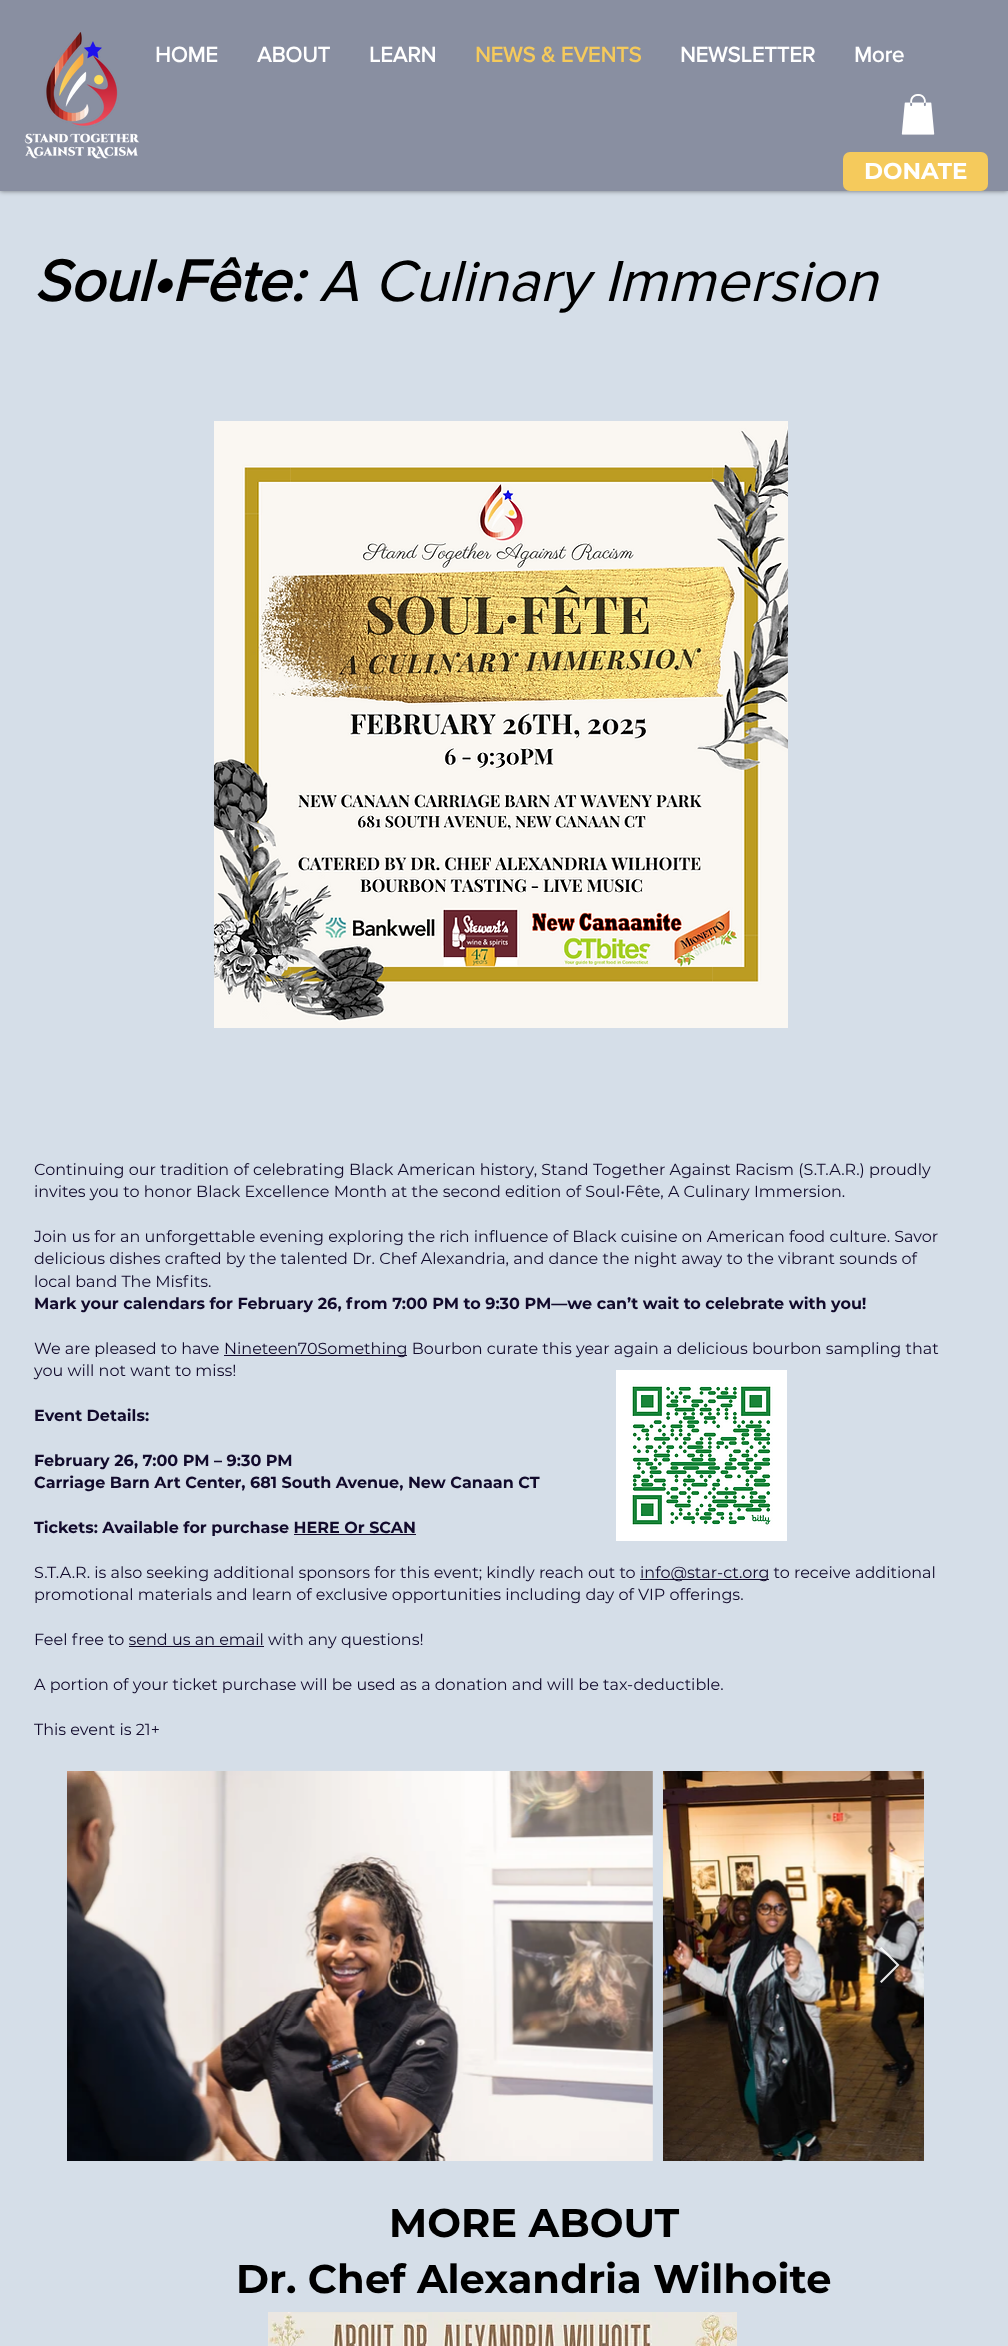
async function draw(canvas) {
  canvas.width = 1008;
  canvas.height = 2346;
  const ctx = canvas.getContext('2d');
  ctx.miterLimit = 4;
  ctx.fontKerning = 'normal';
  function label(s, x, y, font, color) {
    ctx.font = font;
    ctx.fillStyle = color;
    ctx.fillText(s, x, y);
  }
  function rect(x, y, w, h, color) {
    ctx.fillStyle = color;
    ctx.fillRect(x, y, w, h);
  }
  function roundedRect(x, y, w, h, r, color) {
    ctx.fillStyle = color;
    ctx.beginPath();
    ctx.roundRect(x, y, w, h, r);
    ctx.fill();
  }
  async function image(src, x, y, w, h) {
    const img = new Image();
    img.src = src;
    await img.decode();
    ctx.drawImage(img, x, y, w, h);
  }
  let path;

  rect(0, 0, 1008, 2346, '#d5dee8');
  ctx.fillStyle = '#00000080';
  ctx.filter = 'blur(2.5px)';
  ctx.beginPath();
  ctx.rect(0, 0, 1008, 191);
  ctx.fill();
  ctx.filter = 'none';
  rect(0, 0, 1008, 191, '#898fa1');
  await image('assets/img1.png', 24, 32, 116, 127);
  label('HOME', 155, 62, 'bold 22px "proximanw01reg"', '#fff');
  label('ABOUT', 257, 62, 'bold 22px "proximanw01reg"', '#fff');
  label('LEARN', 369, 62, 'bold 22px "proximanw01reg"', '#fff');
  label('NEWS & EVENTS', 475, 62, 'bold 22px "proximanw01reg"', '#f5ca5c');
  label('NEWSLETTER', 680, 62, 'bold 22px "proximanw01reg"', '#fff');
  label('More', 854, 62, 'bold 22px "proximanw01reg"', '#fff');
  await image('assets/img2.png', 901, 94, 34, 41);
  roundedRect(843, 152, 145, 39, 7, '#f5ca5c');
  label('DONATE', 864, 179, 'bold 23px Montserrat', '#fff');
  label('Soul•Fête:', 34, 301, 'italic bold 60px "proximanw01reg"', '#000');
  label('A Culinary Immersion', 319, 301, 'italic 60px "proximanw01reg"', '#000');
  await image('assets/img3.png', 214, 421, 574, 607);
  label('Continuing our tradition of celebrating Black American history, Stand Together Against Racism (S.T.A.R.) proudly', 34, 1175, '16px Montserrat', '#110a2b');
  label('invites you to honor Black Excellence Month at the second edition of Soul•Fête, A Culinary Immersion.', 34, 1197, '16px Montserrat', '#110a2b');
  label('Join us for an unforgettable evening exploring the rich influence of Black cuisine on American food culture. Savor', 34, 1242, '16px Montserrat', '#110a2b');
  label('delicious dishes crafted by the talented Dr. Chef Alexandria, and dance the night away to the vibrant sounds of', 34, 1264, '16px Montserrat', '#110a2b');
  label('local band The Misfits.', 34, 1287, '16px Montserrat', '#110a2b');
  label('Mark your calendars for February 26, from 7:00 PM to 9:30 PM—we can’t wait to celebrate with you!', 34, 1309, 'bold 16px Montserrat', '#110a2b');
  label('We are pleased to have', 34, 1354, '16px Montserrat', '#110a2b');
  rect(224, 1355, 183, 1, '#110a2b');
  label('Nineteen70Something Bourbon curate this year again a delicious bourbon sampling that', 224, 1354, '16px Montserrat', '#110a2b');
  label('you will not want to miss!', 34, 1376, '16px Montserrat', '#110a2b');
  label('Event Details:', 34, 1421, 'bold 16px Montserrat', '#110a2b');
  label('February 26, 7:00 PM – 9:30 PM', 34, 1466, 'bold 16px Montserrat', '#110a2b');
  label('Carriage Barn Art Center, 681 South Avenue, New Canaan CT', 34, 1488, 'bold 16px Montserrat', '#110a2b');
  label('Tickets: Available for purchase HERE Or SCAN', 34, 1533, 'bold 16px Montserrat', '#110a2b');
  rect(294, 1534, 122, 1, '#110a2b');
  label('S.T.A.R. is also seeking additional sponsors for this event; kindly reach out to', 34, 1578, '16px Montserrat', '#110a2b');
  rect(640, 1579, 129, 1, '#110a2b');
  label('info@star-ct.org to receive additional', 640, 1578, '16px Montserrat', '#110a2b');
  label('promotional materials and learn of exclusive opportunities including day of VIP offerings.', 34, 1600, '16px Montserrat', '#110a2b');
  label('Feel free to send us an email with any questions!', 34, 1645, '16px Montserrat', '#110a2b');
  rect(129, 1646, 135, 1, '#110a2b');
  label('A portion of your ticket purchase will be used as a donation and will be tax-deductible.', 34, 1690, '16px Montserrat', '#110a2b');
  label('This event is 21+', 34, 1735, '16px Montserrat', '#110a2b');
  await image('assets/img4.png', 616, 1370, 171, 171);
  await image('assets/img5.png', 67, 1771, 586, 390);
  await image('assets/img6.png', 663, 1771, 261, 390);
  ctx.fillStyle = '#ffffffe6';
  path = new Path2D('M880 1948.5L881.5 1947L899.5 1965L881.5 1983L880 1981.5L896.5 1965Z');
  ctx.fill(path);
  label('MORE ABOUT', 389, 2237, 'bold 40px Montserrat', '#000');
  label('Dr. Chef Alexandria Wilhoite', 236, 2293, 'bold 40px Montserrat', '#000');
  await image('assets/img7.png', 268, 2312, 469, 34);
}

draw(document.querySelector('canvas'));
